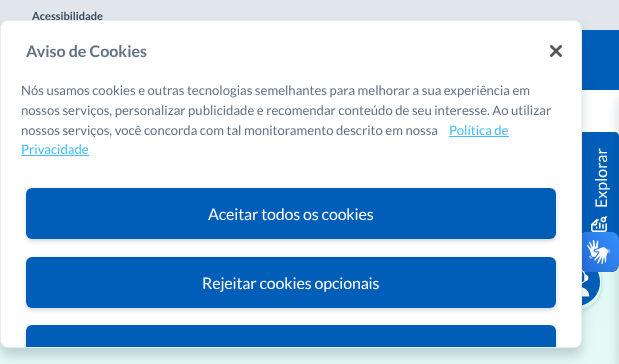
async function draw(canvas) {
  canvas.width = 619;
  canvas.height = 364;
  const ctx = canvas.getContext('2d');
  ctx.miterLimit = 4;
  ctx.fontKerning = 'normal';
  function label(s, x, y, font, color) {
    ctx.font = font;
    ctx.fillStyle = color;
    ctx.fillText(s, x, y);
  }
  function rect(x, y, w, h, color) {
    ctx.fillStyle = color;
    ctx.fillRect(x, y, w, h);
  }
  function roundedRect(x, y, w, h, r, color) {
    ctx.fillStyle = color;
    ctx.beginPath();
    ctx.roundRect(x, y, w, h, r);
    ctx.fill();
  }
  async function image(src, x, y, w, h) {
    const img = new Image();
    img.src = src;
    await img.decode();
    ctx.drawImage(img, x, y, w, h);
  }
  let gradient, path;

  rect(0, 0, 619, 364, '#fff');
  rect(582, 30, 37, 60, '#005eb8');
  rect(0, 0, 619, 30, '#e0e6eb');
  label('Acessibilidade', 32, 20, 'bold 11px Lato', '#394d60');
  ctx.fillStyle = '#005eb8';
  path = new Path2D('M579 240V136C579 134 581 132 583 132H615C617 132 619 134 619 136V240C619 242 617 244 615 244H583C581 244 579 242 579 240Z');
  ctx.fill(path);
  await image('assets/img1.png', 591, 216, 16, 16);
  gradient = ctx.createLinearGradient(309, 90, 310, 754);
  gradient.addColorStop(0, '#d4f7ed');
  gradient.addColorStop(1, '#fff');
  ctx.fillStyle = gradient;
  ctx.fillRect(0, 264, 619, 100);
  ctx.fillStyle = '#142e5233';
  ctx.filter = 'blur(6px)';
  ctx.beginPath();
  ctx.roundRect(619, 98, 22, 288, 4);
  ctx.fill();
  ctx.filter = 'none';
  ctx.font = '16px Lato';
  ctx.fillStyle = '#fff';
  ctx.save();
  ctx.translate(607, 208);
  ctx.rotate(-90 * Math.PI / 180);
  ctx.fillText('Explorar', 0, 0);
  ctx.restore();
  ctx.save();
  path = new Path2D('M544 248H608V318H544ZM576 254C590 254 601 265 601 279V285C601 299 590 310 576 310C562 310 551 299 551 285V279C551 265 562 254 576 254Z');
  ctx.clip(path, 'evenodd');
  ctx.fillStyle = '#142e5233';
  ctx.filter = 'blur(2px)';
  ctx.beginPath();
  ctx.roundRect(551, 255, 50, 56, 25);
  ctx.fill();
  ctx.filter = 'none';
  ctx.restore();
  await image('assets/img5.png', 582, 270, 18, 36);
  await image('assets/img3.png', 582, 232, 37, 40);
  await image('assets/img4.png', 582, 232, 37, 40);
  ctx.fillStyle = '#142e5233';
  ctx.filter = 'blur(6px)';
  ctx.beginPath();
  ctx.roundRect(0, 28, 582, 328, 8);
  ctx.fill();
  ctx.filter = 'none';
  ctx.fillStyle = '#fff';
  ctx.beginPath();
  ctx.roundRect(0.5, 20.5, 581, 327, 7.5);
  ctx.fill();
  ctx.strokeStyle = '#e8edf1';
  ctx.stroke();
  label('Aviso de Cookies', 26, 57, 'bold 16px Lato', '#617385');
  label('Nós usamos cookies e outras tecnologias semelhantes para melhorar a sua experiência em', 21, 95, '13.1px Lato', '#617385');
  label('nossos serviços, personalizar publicidade e recomendar conteúdo de seu interesse. Ao utilizar', 21, 115, '13.1px Lato', '#617385');
  label('nossos serviços, você concorda com tal monitoramento descrito em nossa', 21, 135, '13.1px Lato', '#617385');
  label('Política de', 449, 135, '13.1px Lato', '#40bbff');
  rect(449, 136, 60, 1, '#40bbff');
  label('Privacidade', 21, 154, '13.1px Lato', '#40bbff');
  rect(21, 155, 68, 1, '#40bbff');
  await image('assets/img2.png', 550, 45, 12, 12);
  ctx.fillStyle = '#142e5233';
  ctx.filter = 'blur(2px)';
  ctx.beginPath();
  ctx.roundRect(26, 190, 530, 51, 6);
  ctx.fill();
  ctx.filter = 'none';
  roundedRect(26, 188, 530, 51, 6, '#005eb8');
  ctx.letterSpacing = '-0.15px';
  label('Aceitar todos os cookies', 208, 220, '16px Lato', '#fff');
  ctx.fillStyle = '#142e5233';
  ctx.filter = 'blur(2px)';
  ctx.beginPath();
  ctx.roundRect(26, 259, 530, 51, 6);
  ctx.fill();
  ctx.filter = 'none';
  roundedRect(26, 257, 530, 51, 6, '#005eb8');
  label('Rejeitar cookies opcionais', 202, 289, '16px Lato', '#fff');
  ctx.save();
  ctx.beginPath();
  ctx.roundRect(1, 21, 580, 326, 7);
  ctx.clip();
  ctx.fillStyle = '#142e5233';
  ctx.filter = 'blur(2px)';
  ctx.beginPath();
  ctx.roundRect(26, 327, 530, 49, 6);
  ctx.fill();
  ctx.filter = 'none';
  ctx.restore();
  ctx.fillStyle = '#005eb8';
  ctx.beginPath();
  ctx.roundRect(26, 325, 530, 22, [6, 6, 0, 0]);
  ctx.fill();
}

draw(document.querySelector('canvas'));
